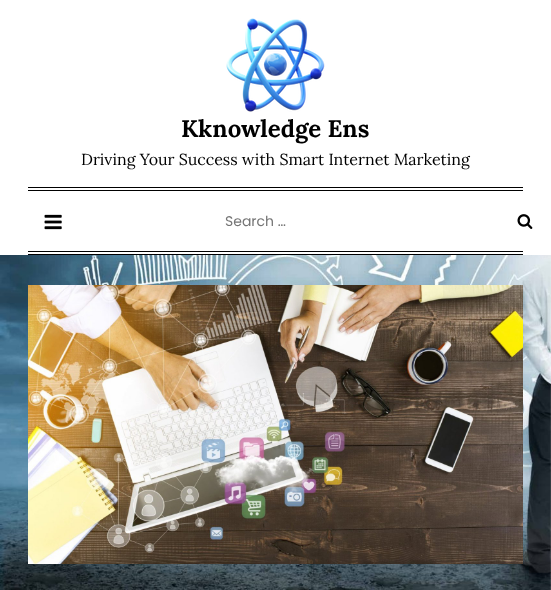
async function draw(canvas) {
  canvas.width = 551;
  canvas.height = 590;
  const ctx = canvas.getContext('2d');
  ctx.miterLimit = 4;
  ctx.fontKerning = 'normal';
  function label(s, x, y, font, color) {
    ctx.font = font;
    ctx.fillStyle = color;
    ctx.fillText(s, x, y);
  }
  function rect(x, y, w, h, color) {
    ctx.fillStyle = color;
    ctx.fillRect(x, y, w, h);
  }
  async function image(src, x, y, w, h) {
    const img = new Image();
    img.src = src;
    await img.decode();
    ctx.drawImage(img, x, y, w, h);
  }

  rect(0, 0, 551, 590, '#fff');
  await image('assets/img1.png', 0, 255, 551, 335);
  await image('assets/img2.png', 226, 18, 99, 94);
  label('Kknowledge Ens', 181, 137, 'bold 24px Lora', '#000');
  label('Driving Your Success with Smart Internet Marketing', 81, 165, '16px Lora', '#000');
  rect(28, 187, 495, 1, '#000');
  rect(28, 190, 495, 1, '#000');
  rect(28, 251, 495, 1, '#000');
  rect(28, 254, 495, 1, '#000');
  await image('assets/img3.png', 44, 214, 18, 16);
  label('Search …', 225, 226, '14px Poppins', '#757575');
  await image('assets/img4.png', 517, 214, 16, 15);
  await image('assets/img5.png', 28, 285, 495, 279);
}

draw(document.querySelector('canvas'));
